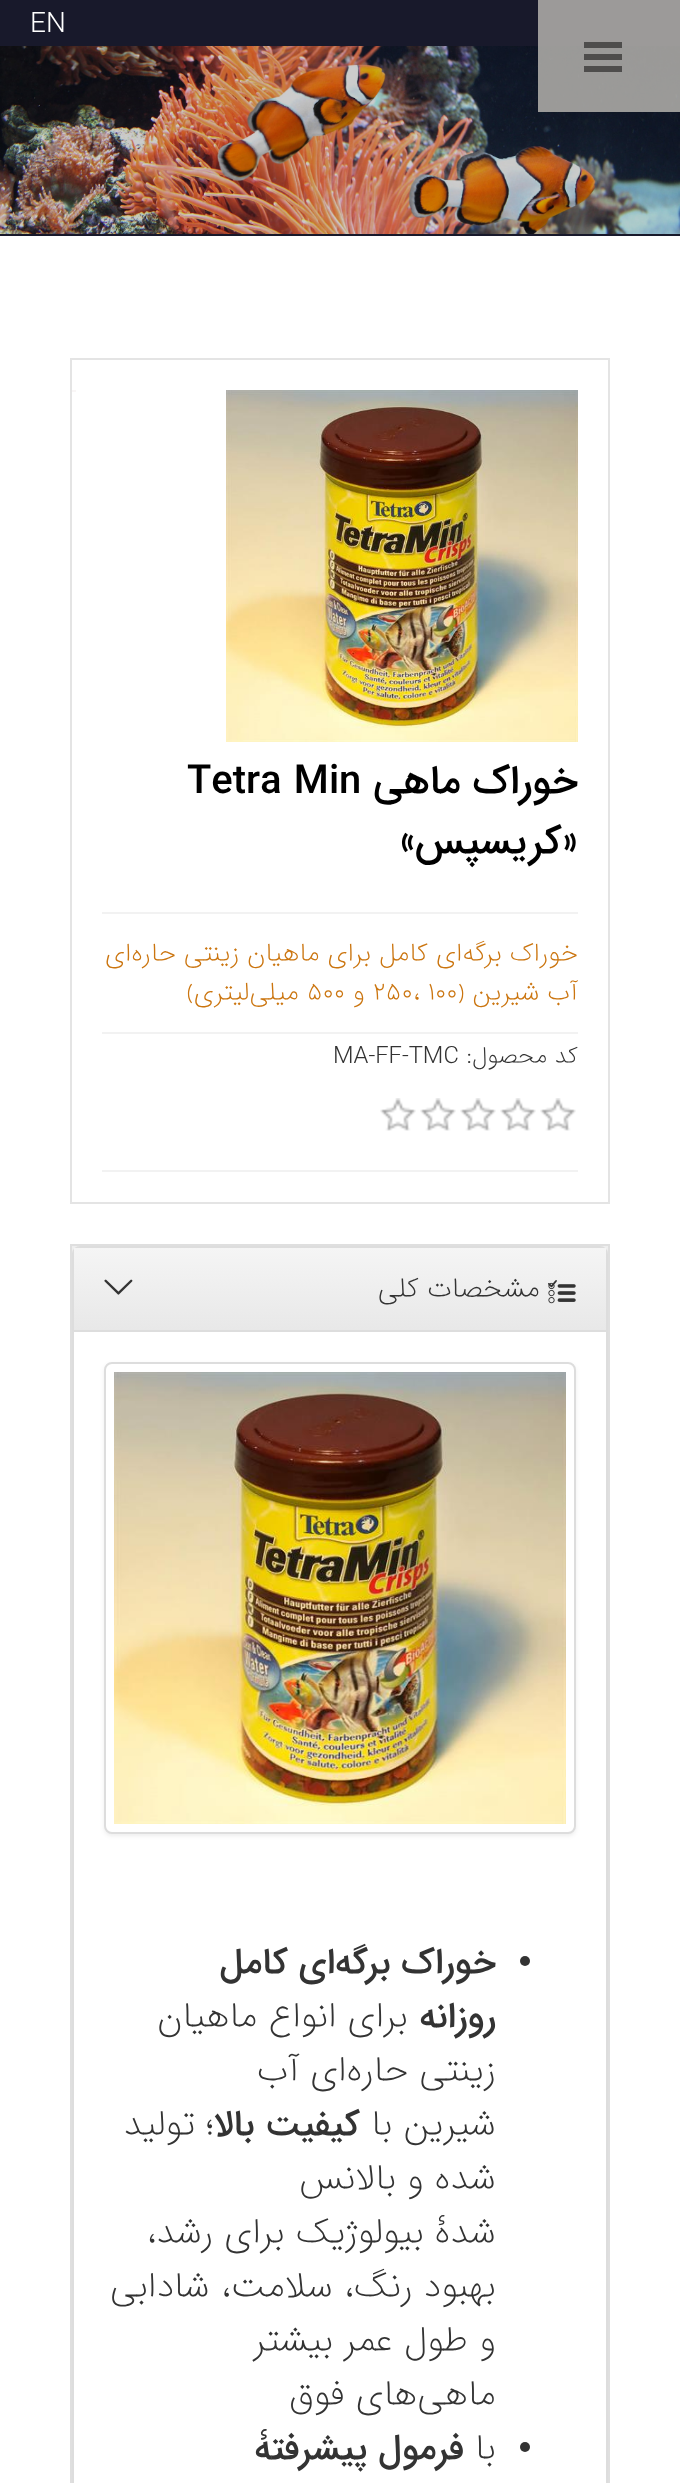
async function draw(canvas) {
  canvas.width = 680;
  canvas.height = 2483;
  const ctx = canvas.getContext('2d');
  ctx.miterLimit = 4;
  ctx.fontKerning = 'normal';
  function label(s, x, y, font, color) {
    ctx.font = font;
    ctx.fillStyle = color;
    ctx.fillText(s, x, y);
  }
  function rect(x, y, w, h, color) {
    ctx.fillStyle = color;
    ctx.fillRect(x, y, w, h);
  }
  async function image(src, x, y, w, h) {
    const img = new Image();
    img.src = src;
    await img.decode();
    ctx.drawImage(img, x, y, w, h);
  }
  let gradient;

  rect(0, 0, 680, 2483, '#fff');
  rect(0, 0, 680, 236, '#18192b');
  await image('assets/img1.png', 0, 46, 680, 188);
  rect(538, 0, 142, 112, '#b4b2add9');
  rect(584, 42, 38, 6, '#4e4d4c');
  rect(584, 54, 38, 6, '#4e4d4c');
  rect(584, 66, 38, 6, '#4e4d4c');
  label('EN', 30, 32, '200 28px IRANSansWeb', '#fff');
  ctx.strokeStyle = '#e4e4e4';
  ctx.lineWidth = 2;
  ctx.strokeRect(71, 359, 538, 844);
  rect(72, 390, 4, 2, '#f9f6f6');
  await image('assets/img2.png', 226, 390, 352, 352);
  rect(102, 912, 476, 2, '#f2f2f2');
  ctx.direction = 'rtl';
  label('خوراک ماهی', 578, 793, '500 40px IRANSansWeb', '#000');
  ctx.direction = 'ltr';
  label('Tetra Min', 187, 793, '500 40px IRANSansWeb', '#000');
  ctx.direction = 'rtl';
  label('«کریسپس»', 578, 853, '500 40px IRANSansWeb', '#000');
  rect(102, 1170, 476, 2, '#f2f2f2');
  rect(102, 1032, 476, 2, '#f2f2f2');
  label('خوراک برگه‌ای کامل برای ماهیان زینتی حاره‌ای', 578, 961, '200 26px IRANSansWeb', '#cb750f');
  label('آب شیرین ﴿', 578, 1000, '200 26px IRANSansWeb', '#cb750f');
  ctx.direction = 'ltr';
  label('۲۵۰، ۱۰۰', 373, 1000, '200 26px IRANSansWeb', '#cb750f');
  ctx.direction = 'rtl';
  label('و', 365, 1000, '200 26px IRANSansWeb', '#cb750f');
  ctx.direction = 'ltr';
  label('۵۰۰', 307, 1000, '200 26px IRANSansWeb', '#cb750f');
  ctx.direction = 'rtl';
  label('میلی‌لیتری﴾', 299, 1000, '200 26px IRANSansWeb', '#cb750f');
  label('کد محصول:', 578, 1063, '200 23.75px IRANSansWeb', '#333');
  ctx.direction = 'ltr';
  label('MA-FF-TMC', 333, 1063, '200 23.75px IRANSansWeb', '#333');
  await image('assets/img3.png', 540, 1098, 36, 33);
  await image('assets/img3.png', 500, 1098, 36, 33);
  await image('assets/img3.png', 460, 1098, 36, 33);
  await image('assets/img3.png', 420, 1098, 36, 33);
  await image('assets/img3.png', 380, 1098, 36, 33);
  rect(72, 1246, 536, 8, '#eee');
  ctx.strokeStyle = '#dfdfdf';
  ctx.strokeRect(71, 1245, 538, 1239);
  ctx.fillStyle = '#fff';
  ctx.beginPath();
  ctx.roundRect(73, 1247, 534, 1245, 7);
  ctx.fill();
  ctx.strokeStyle = '#ddd';
  ctx.stroke();
  gradient = ctx.createLinearGradient(340, 1248, 340, 1330);
  gradient.addColorStop(0, '#f5f5f5');
  gradient.addColorStop(1, '#e8e8e8');
  ctx.fillStyle = gradient;
  ctx.fillRect(74, 1248, 532, 82);
  await image('assets/img4.png', 548, 1280, 28, 24);
  ctx.direction = 'rtl';
  label('مشخصات کلی', 540, 1297, '200 28px IRANSansWeb', '#333');
  await image('assets/img5.png', 104, 1279, 29, 16);
  rect(74, 1330, 532, 2, '#ddd');
  ctx.fillStyle = '#00000012';
  ctx.filter = 'blur(2px)';
  ctx.beginPath();
  ctx.roundRect(104, 1364, 472, 472, 8);
  ctx.fill();
  ctx.filter = 'none';
  ctx.fillStyle = '#fff';
  ctx.beginPath();
  ctx.roundRect(105, 1363, 470, 470, 7);
  ctx.fill();
  ctx.stroke();
  await image('assets/img6.png', 114, 1372, 452, 452);
  ctx.fillStyle = '#333';
  ctx.beginPath();
  ctx.arc(525, 1961, 5, 0, 2 * Math.PI);
  ctx.fill();
  label('خوراک برگه‌ای کامل', 496, 1973, '500 36px IRANSansWeb', '#333');
  label('روزانه', 496, 2027, '500 36px IRANSansWeb', '#333');
  label('برای انواع ماهیان', 408, 2027, '200 36px IRANSansWeb', '#333');
  label('زینتی حاره‌ای آب', 496, 2081, '200 36px IRANSansWeb', '#333');
  label('شیرین با', 496, 2135, '200 36px IRANSansWeb', '#333');
  label('کیفیت بالا', 360, 2135, '500 36px IRANSansWeb', '#333');
  label('؛ تولید', 214, 2135, '200 36px IRANSansWeb', '#333');
  label('شده و بالانس', 496, 2189, '200 36px IRANSansWeb', '#333');
  label('شدۀ بیولوژیک برای رشد،', 496, 2243, '200 36px IRANSansWeb', '#333');
  label('بهبود رنگ، سلامت، شادابی', 496, 2297, '200 36px IRANSansWeb', '#333');
  label('و طول عمر بیشتر', 496, 2351, '200 36px IRANSansWeb', '#333');
  label('ماهی‌های فوق', 496, 2405, '200 36px IRANSansWeb', '#333');
  ctx.beginPath();
  ctx.arc(525, 2447, 5, 0, 2 * Math.PI);
  ctx.fill();
  label('با', 496, 2459, '200 36px IRANSansWeb', '#333');
  label('فرمول پیشرفتۀ', 464, 2459, '500 36px IRANSansWeb', '#333');
}

draw(document.querySelector('canvas'));
